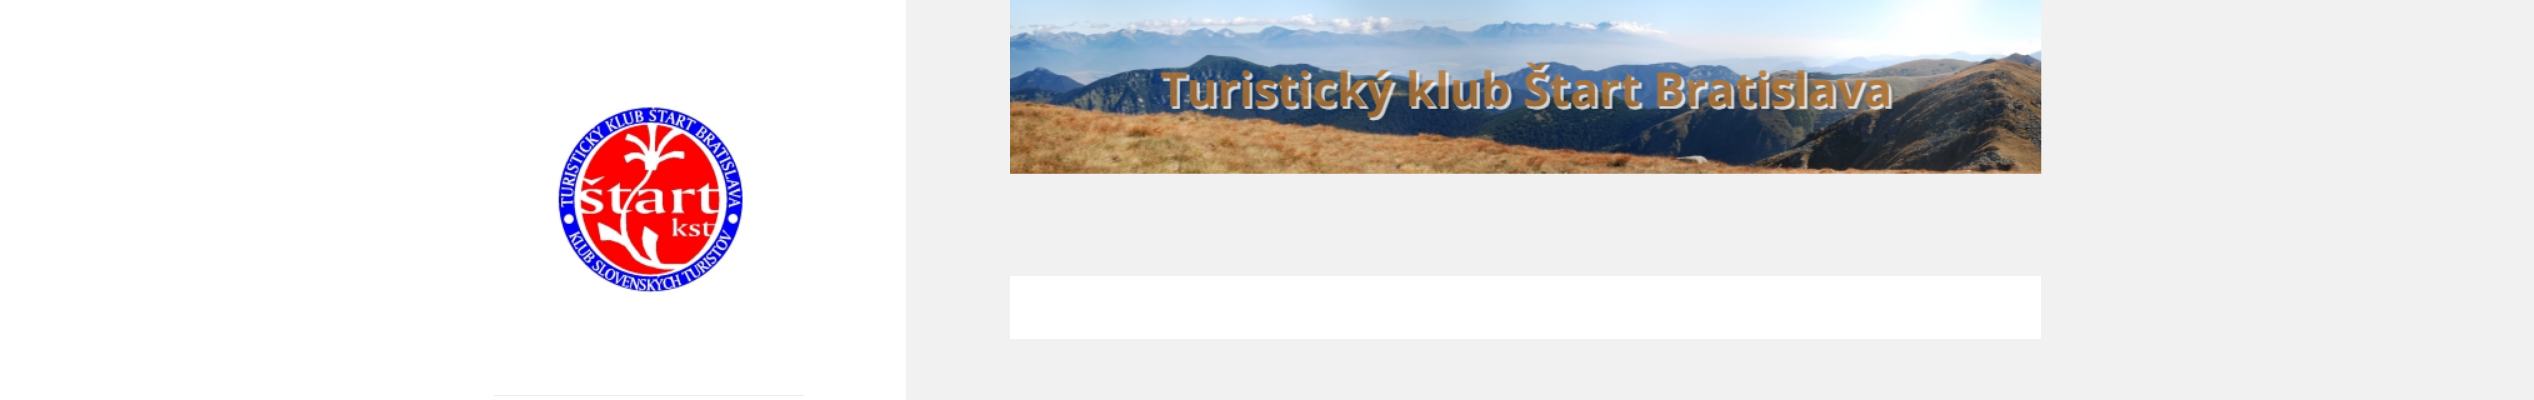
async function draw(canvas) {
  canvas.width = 2534;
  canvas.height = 400;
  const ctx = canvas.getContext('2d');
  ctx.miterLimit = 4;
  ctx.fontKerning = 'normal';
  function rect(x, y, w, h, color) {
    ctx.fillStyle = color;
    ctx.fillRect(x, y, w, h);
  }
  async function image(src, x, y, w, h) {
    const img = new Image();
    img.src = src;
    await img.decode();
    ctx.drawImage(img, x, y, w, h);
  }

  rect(0, 0, 2534, 400, '#f1f1f1');
  rect(0, 0, 906, 400, '#fff');
  await image('assets/img1.png', 557, 106, 186, 187);
  rect(494, 395, 310, 1, '#ebebeb');
  await image('assets/img2.png', 1010, 0, 1032, 174);
  rect(1010, 276, 1031, 63, '#fff');
}

draw(document.querySelector('canvas'));
